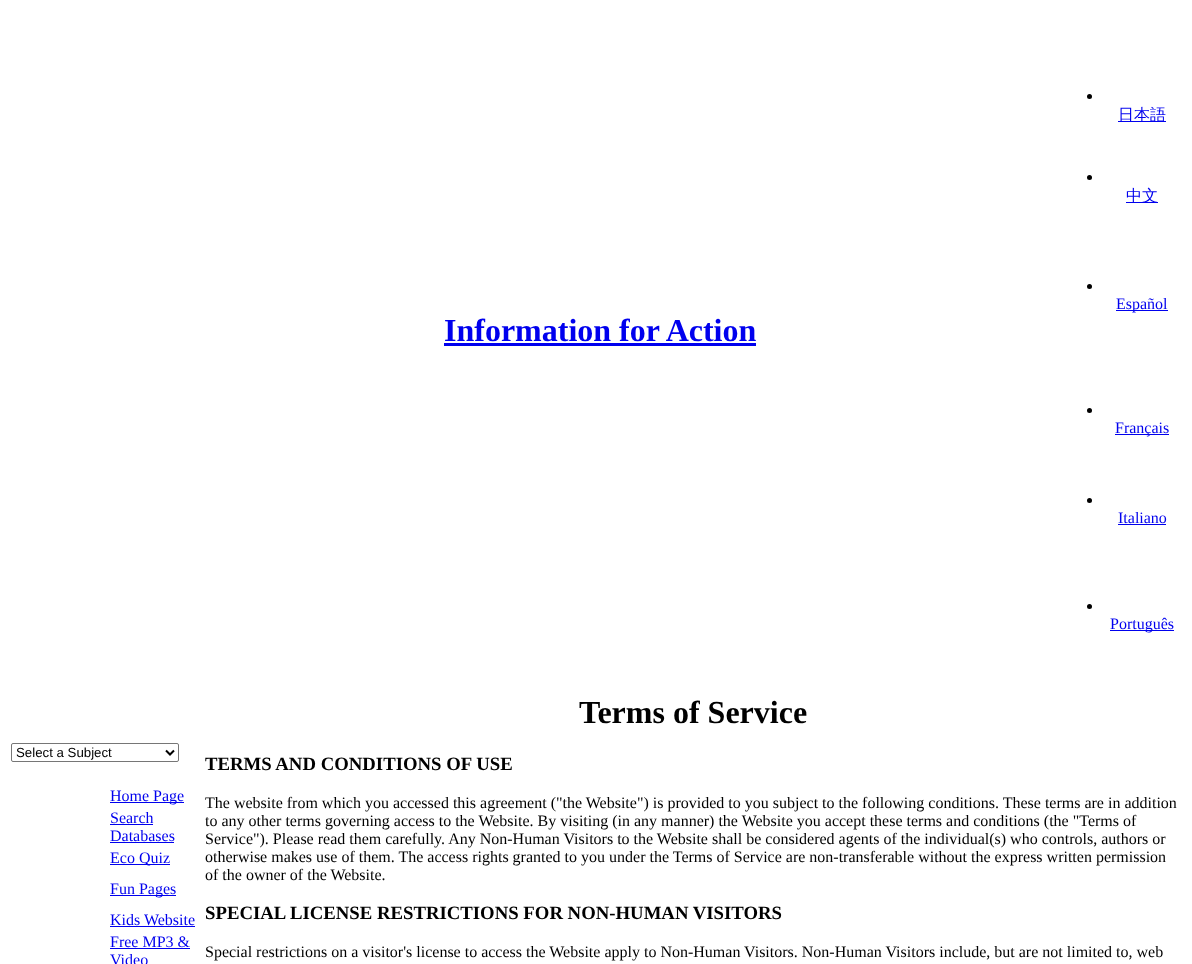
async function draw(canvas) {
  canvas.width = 1192;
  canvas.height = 964;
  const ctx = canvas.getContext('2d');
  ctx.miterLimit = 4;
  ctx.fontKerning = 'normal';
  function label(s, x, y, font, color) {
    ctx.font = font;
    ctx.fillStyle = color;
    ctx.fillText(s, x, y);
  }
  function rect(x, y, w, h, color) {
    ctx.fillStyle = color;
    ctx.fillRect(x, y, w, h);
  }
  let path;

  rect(0, 0, 1192, 964, '#fff');
  label('Information for Action', 444, 341, 'bold 32px Liberation Serif', '#00e');
  rect(444, 343, 312, 3, '#00e');
  ctx.fillStyle = '#000';
  ctx.beginPath();
  ctx.arc(1089.5, 96.5, 2.5, 0, 2 * Math.PI);
  ctx.fill();
  rect(1118, 121, 48, 1, '#00e');
  label('日本語', 1118, 120, '500 16px WenQuanYi Zen Hei', '#00e');
  ctx.fillStyle = '#000';
  ctx.beginPath();
  ctx.arc(1089.5, 177.5, 2.5, 0, 2 * Math.PI);
  ctx.fill();
  rect(1126, 202, 32, 1, '#00e');
  label('中文', 1126, 201, '500 16px WenQuanYi Zen Hei', '#00e');
  ctx.fillStyle = '#000';
  ctx.beginPath();
  ctx.arc(1089.5, 286.5, 2.5, 0, 2 * Math.PI);
  ctx.fill();
  rect(1116, 310, 52, 1, '#00e');
  label('Español', 1116, 309, '16px Liberation Serif', '#00e');
  ctx.fillStyle = '#000';
  ctx.beginPath();
  ctx.arc(1089.5, 410.5, 2.5, 0, 2 * Math.PI);
  ctx.fill();
  rect(1115, 434, 54, 1, '#00e');
  label('Français', 1115, 433, '16px Liberation Serif', '#00e');
  ctx.fillStyle = '#000';
  ctx.beginPath();
  ctx.arc(1089.5, 500.5, 2.5, 0, 2 * Math.PI);
  ctx.fill();
  label('Italiano', 1118, 523, '16px Liberation Serif', '#00e');
  rect(1118, 524, 48, 1, '#00e');
  ctx.fillStyle = '#000';
  ctx.beginPath();
  ctx.arc(1089.5, 606.5, 2.5, 0, 2 * Math.PI);
  ctx.fill();
  rect(1110, 630, 64, 1, '#00e');
  label('Português', 1110, 629, '16px Liberation Serif', '#00e');
  ctx.beginPath();
  ctx.roundRect(11.5, 743.5, 167, 18, 1.5);
  ctx.strokeStyle = '#767676';
  ctx.stroke();
  path = new Path2D('M166 750.5L170 754.5L174 750.5');
  ctx.strokeStyle = '#000';
  ctx.lineWidth = 2;
  ctx.stroke(path);
  label('Select a Subject', 16, 757, '13.25px Liberation Sans', '#000');
  rect(110, 802, 74, 1, '#00e');
  label('Home Page', 110, 801, '16px Liberation Serif', '#00e');
  label('Search', 110, 823, '16px Liberation Serif', '#00e');
  rect(110, 824, 43, 1, '#00e');
  label('Databases', 110, 841, '16px Liberation Serif', '#00e');
  rect(110, 842, 64, 1, '#00e');
  rect(110, 864, 60, 1, '#00e');
  label('Eco Quiz', 110, 863, '16px Liberation Serif', '#00e');
  rect(110, 895, 66, 1, '#00e');
  label('Fun Pages', 110, 894, '16px Liberation Serif', '#00e');
  label('Kids Website', 110, 925, '16px Liberation Serif', '#00e');
  rect(110, 926, 85, 1, '#00e');
  label('Free MP3 &', 110, 947, '16px Liberation Serif', '#00e');
  rect(110, 948, 80, 1, '#00e');
  label('Video', 110, 965, '16px Liberation Serif', '#00e');
  label('Terms of Service', 579, 723, 'bold 32px Liberation Serif', '#000');
  label('TERMS AND CONDITIONS OF USE', 205, 770, 'bold 18.75px Liberation Serif', '#000');
  label('The website from which you accessed this agreement ("the Website") is provided to you subject to the following conditions. These terms are in addition', 205, 808, '16px Liberation Serif', '#000');
  label('to any other terms governing access to the Website. By visiting (in any manner) the Website you accept these terms and conditions (the "Terms of', 205, 826, '16px Liberation Serif', '#000');
  label('Service"). Please read them carefully. Any Non-Human Visitors to the Website shall be considered agents of the individual(s) who controls, authors or', 205, 844, '16px Liberation Serif', '#000');
  label('otherwise makes use of them. The access rights granted to you under the Terms of Service are non-transferable without the express written permission', 205, 862, '16px Liberation Serif', '#000');
  label('of the owner of the Website.', 205, 880, '16px Liberation Serif', '#000');
  label('SPECIAL LICENSE RESTRICTIONS FOR NON-HUMAN VISITORS', 205, 919, 'bold 18.75px Liberation Serif', '#000');
  label('Special restrictions on a visitor\'s license to access the Website apply to Non-Human Visitors. Non-Human Visitors include, but are not limited to, web', 205, 957, '16px Liberation Serif', '#000');
}

draw(document.querySelector('canvas'));
